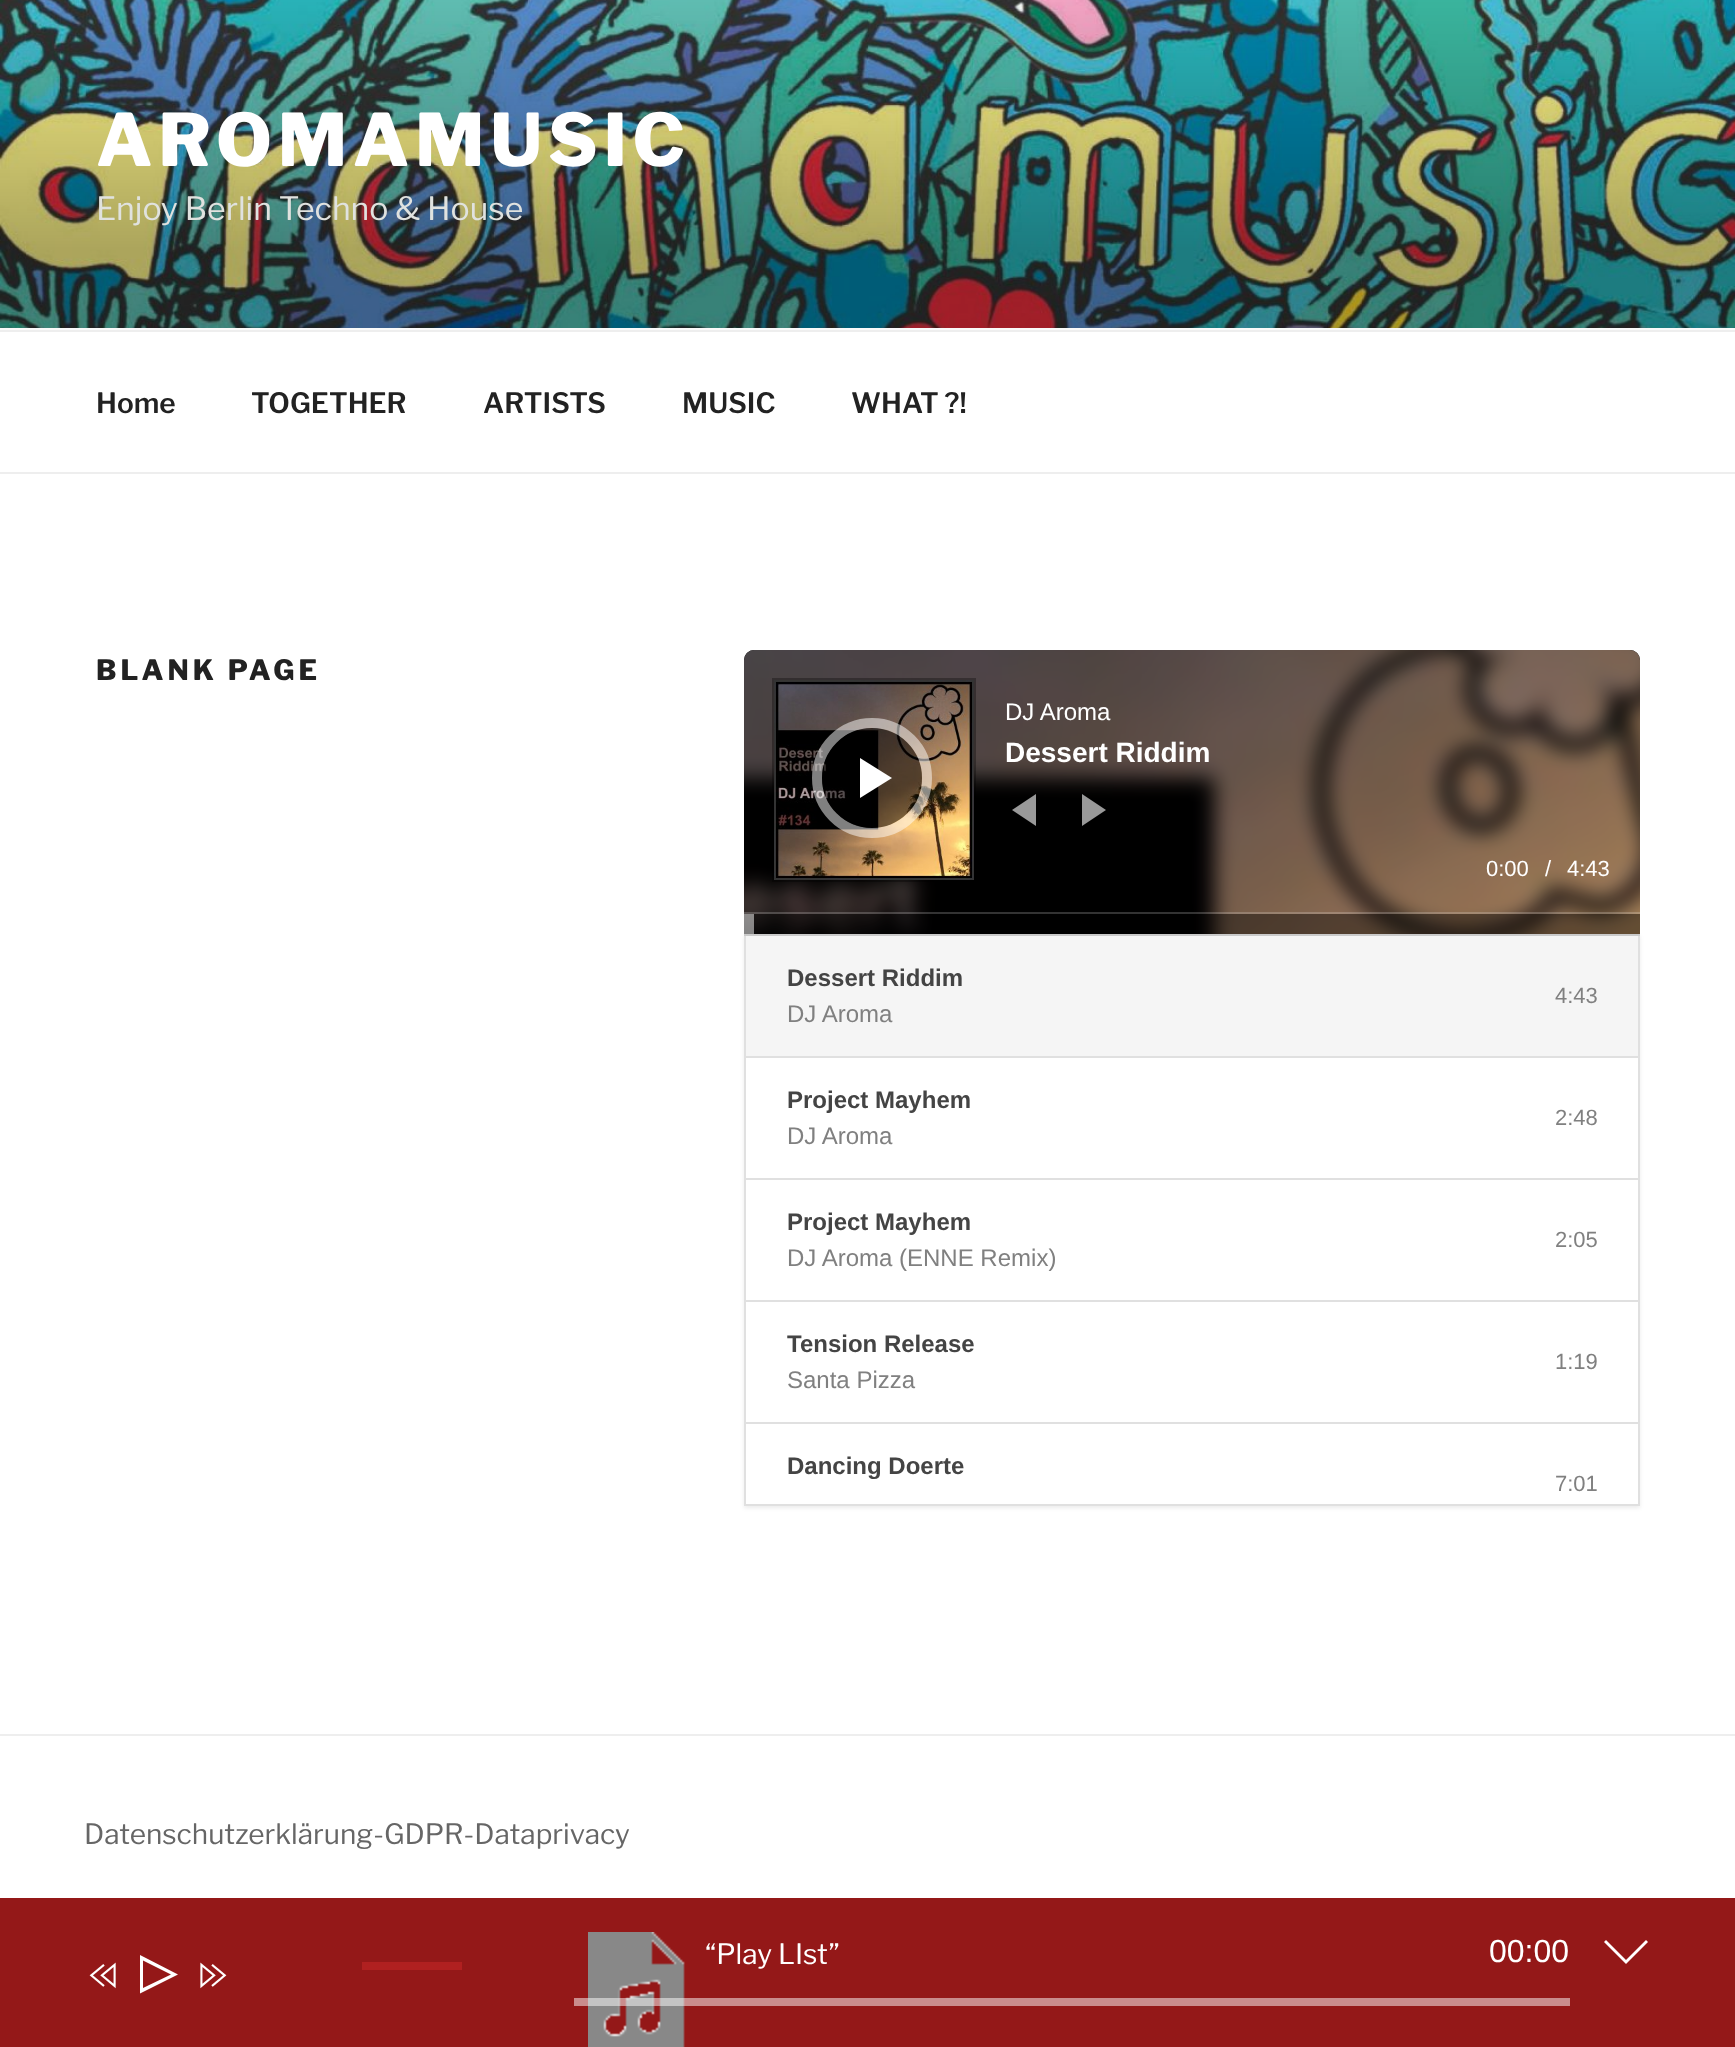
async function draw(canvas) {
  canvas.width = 1735;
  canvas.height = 2047;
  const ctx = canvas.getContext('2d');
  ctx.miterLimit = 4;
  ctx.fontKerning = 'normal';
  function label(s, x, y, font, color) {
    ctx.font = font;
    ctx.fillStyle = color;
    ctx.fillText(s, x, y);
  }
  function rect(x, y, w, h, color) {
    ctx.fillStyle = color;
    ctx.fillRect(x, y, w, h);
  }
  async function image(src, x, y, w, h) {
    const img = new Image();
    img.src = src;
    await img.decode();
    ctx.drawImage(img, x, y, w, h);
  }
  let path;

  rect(0, 0, 1735, 2047, '#fff');
  rect(0, 328, 1735, 2, '#fafafa');
  await image('assets/img1.png', 0, 0, 1735, 328);
  ctx.letterSpacing = '5.75px';
  label('AROMAMUSIC', 96, 166, '800 72px Libre Franklin', '#fff');
  ctx.letterSpacing = '0px';
  label('Enjoy Berlin Techno & House', 96, 220, '32px Libre Franklin', '#e0e2df');
  rect(0, 330, 1735, 2, '#eee');
  rect(0, 472, 1735, 2, '#eee');
  label('Home', 96, 413, '600 28px Libre Franklin', '#222');
  label('TOGETHER', 251, 413, '600 28px Libre Franklin', '#222');
  label('ARTISTS', 483, 413, '600 28px Libre Franklin', '#222');
  label('MUSIC', 682, 413, '600 28px Libre Franklin', '#222');
  label('WHAT ?!', 851, 413, '600 28px Libre Franklin', '#222');
  ctx.letterSpacing = '4px';
  label('BLANK PAGE', 96, 680, '800 28px Libre Franklin', '#222');
  ctx.save();
  path = new Path2D('M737 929H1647V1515H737ZM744 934H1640V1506H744Z');
  ctx.clip(path, 'evenodd');
  ctx.fillStyle = '#00000014';
  ctx.filter = 'blur(2px)';
  ctx.beginPath();
  ctx.rect(744, 936, 896, 572);
  ctx.fill();
  ctx.filter = 'none';
  ctx.restore();
  rect(1638, 934, 2, 572, '#e0e0e0');
  rect(744, 1504, 896, 2, '#e0e0e0');
  rect(744, 934, 2, 572, '#e0e0e0');
  rect(744, 934, 896, 2, '#cacaca');
  ctx.fillStyle = '#000';
  ctx.beginPath();
  ctx.roundRect(744, 650, 896, 284, [10, 10, 0, 0]);
  ctx.fill();
  ctx.beginPath();
  ctx.roundRect(745, 651, 894, 282, [9, 9, 0, 0]);
  ctx.strokeStyle = '#0000004d';
  ctx.lineWidth = 2;
  ctx.stroke();
  await image('assets/img2.png', 744, 650, 896, 284);
  ctx.strokeRect(773, 679, 202, 202);
  await image('assets/img3.png', 774, 680, 200, 200);
  ctx.strokeStyle = '#ffffff33';
  ctx.strokeRect(775, 681, 198, 198);
  ctx.letterSpacing = '0px';
  label('DJ Aroma', 1005, 720, '24px Liberation Sans', '#fff');
  label('Dessert Riddim', 1005, 762, 'bold 28px Liberation Sans', '#fff');
  ctx.beginPath();
  ctx.arc(872, 778, 55, 0, 2 * Math.PI);
  ctx.strokeStyle = '#ffffff80';
  ctx.lineWidth = 10;
  ctx.stroke();
  ctx.fillStyle = '#00000080';
  ctx.beginPath();
  ctx.arc(872, 778, 50, 0, 2 * Math.PI);
  ctx.fill();
  ctx.fillStyle = '#fff';
  path = new Path2D('M860 798V758L892 778Z');
  ctx.fill(path);
  ctx.fillStyle = '#ffffff99';
  path = new Path2D('M1036 794V826L1012 810Z');
  ctx.fill(path);
  path = new Path2D('M1082 826V794L1106 810Z');
  ctx.fill(path);
  label('0:00', 1486, 876, '22px Liberation Sans', '#fff');
  label('/', 1545, 876, '22px Liberation Sans', '#fff');
  label('4:43', 1567, 876, '22px Liberation Sans', '#fff');
  rect(744, 912, 896, 2, '#ffffff33');
  rect(744, 914, 896, 20, '#00000066');
  rect(744, 914, 10, 20, '#ffffff80');
  rect(746, 936, 892, 120, '#f5f5f5');
  label('Dessert Riddim', 787, 986, 'bold 24px Liberation Sans', '#444');
  label('DJ Aroma', 787, 1022, '24px Liberation Sans', '#808080');
  label('4:43', 1555, 1003, '22px Liberation Sans', '#808080');
  rect(746, 1056, 892, 2, '#e0e0e0');
  label('Project Mayhem', 787, 1108, 'bold 24px Liberation Sans', '#444');
  label('DJ Aroma', 787, 1144, '24px Liberation Sans', '#808080');
  label('2:48', 1555, 1125, '22px Liberation Sans', '#808080');
  rect(746, 1178, 892, 2, '#e0e0e0');
  label('Project Mayhem', 787, 1230, 'bold 24px Liberation Sans', '#444');
  label('DJ Aroma (ENNE Remix)', 787, 1266, '24px Liberation Sans', '#808080');
  label('2:05', 1555, 1247, '22px Liberation Sans', '#808080');
  rect(746, 1300, 892, 2, '#e0e0e0');
  label('Tension Release', 787, 1352, 'bold 24px Liberation Sans', '#444');
  label('Santa Pizza', 787, 1388, '24px Liberation Sans', '#808080');
  label('1:19', 1555, 1369, '22px Liberation Sans', '#808080');
  rect(746, 1422, 892, 2, '#e0e0e0');
  label('Dancing Doerte', 787, 1474, 'bold 24px Liberation Sans', '#444');
  label('7:01', 1555, 1491, '22px Liberation Sans', '#808080');
  rect(0, 1734, 1735, 2, '#eee');
  label('Datenschutzerklärung-GDPR-Dataprivacy', 84, 1844, '28px Libre Franklin', '#666');
  rect(0, 1898, 1735, 149, '#941818');
  await image('assets/img4.png', 588, 1932, 97, 115);
  label('“Play LIst”', 705, 1964, '28px Libre Franklin', '#fff');
  label('00:00', 1489, 1962, '32px Liberation Sans', '#fff');
  path = new Path2D('M140 1955V1993.5L178 1974.5ZM143 1960.5L171 1974.5L143 1988Z');
  ctx.fill(path);
  rect(362, 1962, 100, 8, '#b02020');
  rect(574, 1998, 996, 8, '#ffffff80');
  await image('assets/img5.png', 89, 1962, 27, 27);
  await image('assets/img6.png', 200, 1962, 27, 27);
  ctx.fillStyle = '#fff';
  path = new Path2D('M1648 1942L1626 1964L1604 1942L1606 1940L1626 1960L1646 1940Z');
  ctx.fill(path);
}

draw(document.querySelector('canvas'));
